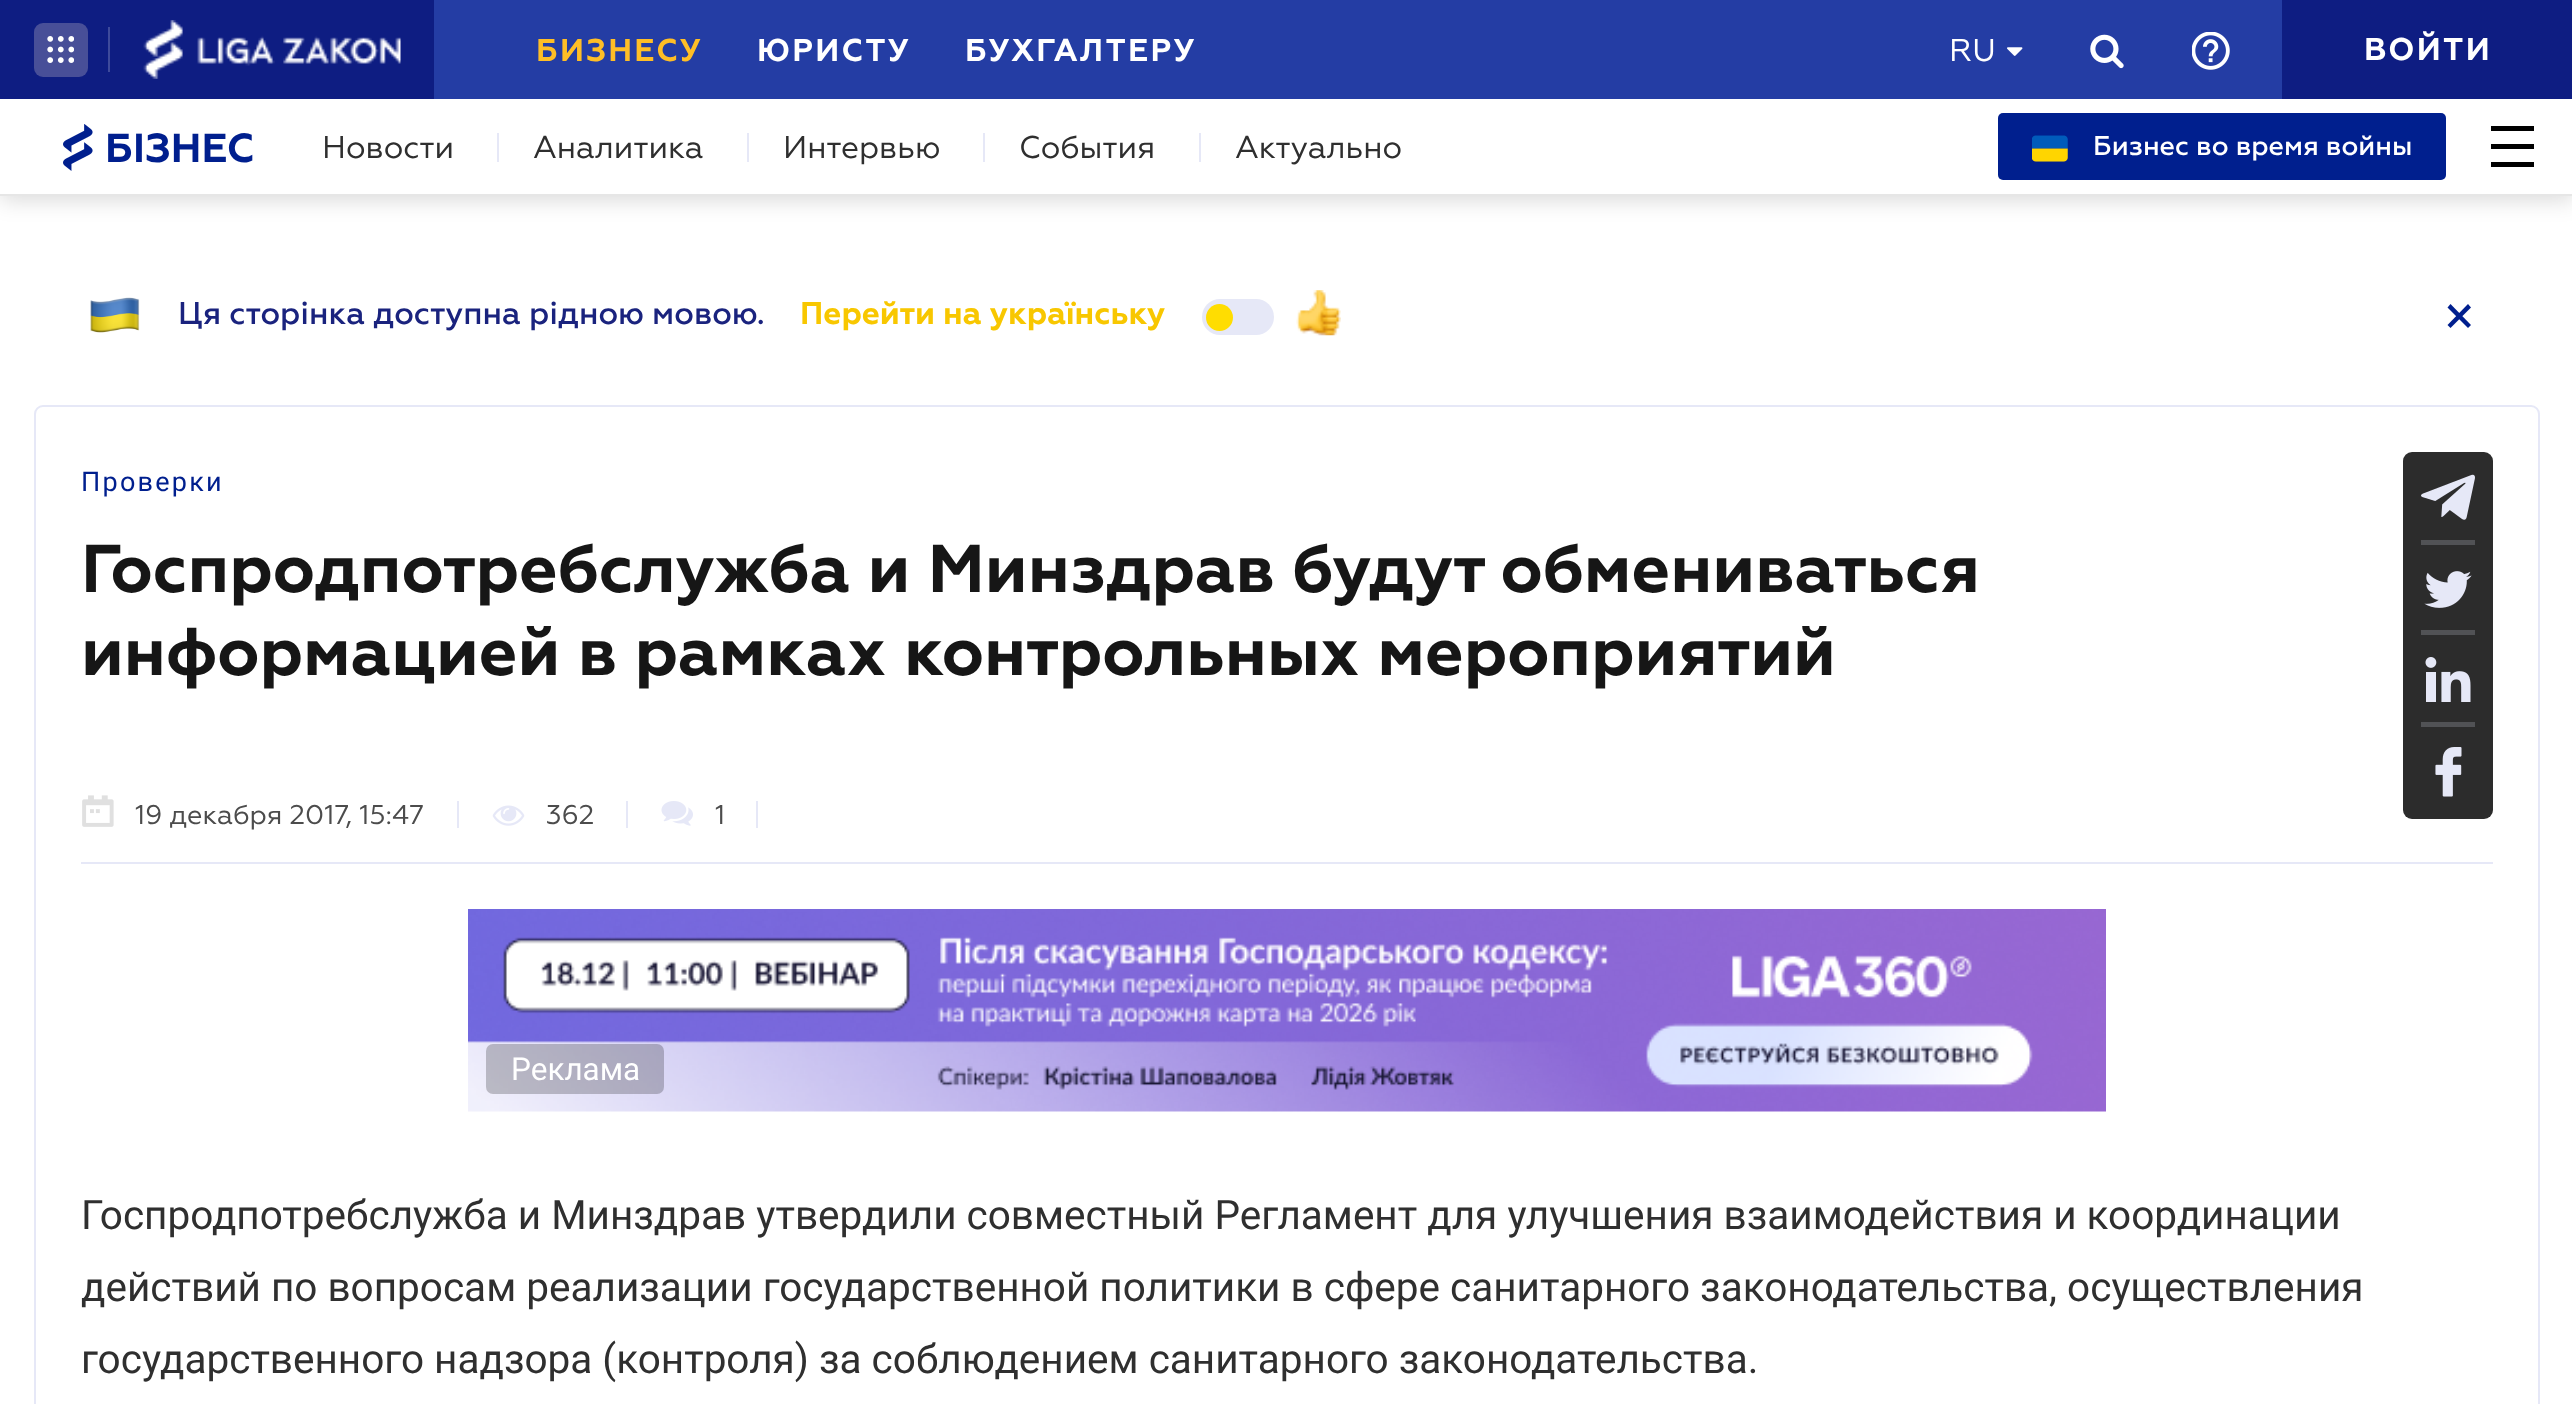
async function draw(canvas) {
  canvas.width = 2572;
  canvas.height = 1404;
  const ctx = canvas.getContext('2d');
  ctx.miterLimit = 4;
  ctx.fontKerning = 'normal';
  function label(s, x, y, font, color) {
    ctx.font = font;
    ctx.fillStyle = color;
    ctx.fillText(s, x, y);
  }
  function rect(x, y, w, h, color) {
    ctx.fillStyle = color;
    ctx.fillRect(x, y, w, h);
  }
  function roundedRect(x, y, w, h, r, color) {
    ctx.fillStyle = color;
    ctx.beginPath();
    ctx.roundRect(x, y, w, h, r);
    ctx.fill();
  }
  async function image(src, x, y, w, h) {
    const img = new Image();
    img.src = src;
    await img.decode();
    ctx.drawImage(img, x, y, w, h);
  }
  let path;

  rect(0, 0, 2572, 1404, '#fff');
  ctx.fillStyle = '#00000026';
  ctx.filter = 'blur(11px)';
  ctx.beginPath();
  ctx.rect(0, 104, 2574, 96);
  ctx.fill();
  ctx.filter = 'none';
  rect(434, 0, 1848, 99, '#243da4');
  rect(0, 0, 434, 99, '#0e1d82');
  roundedRect(34, 23, 54, 54, 9, '#484f98');
  await image('assets/img1.png', 47, 36, 27, 27);
  rect(108, 27, 2, 45, '#3e4a9b');
  await image('assets/img2.png', 143, 20, 258, 59);
  ctx.letterSpacing = '2.25px';
  label('БИЗНЕСУ', 536, 61, 'bold 31.5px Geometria', '#ffbe26');
  label('ЮРИСТУ', 757, 61, 'bold 31.5px Geometria', '#fff');
  label('БУХГАЛТЕРУ', 965, 61, 'bold 31.5px Geometria', '#fff');
  ctx.letterSpacing = '0px';
  label('RU', 1949, 61, '31.5px Geometria', '#fff');
  await image('assets/img3.png', 2007, 47, 16, 9);
  await image('assets/img4.png', 2090, 34, 34, 35);
  await image('assets/img5.png', 2192, 32, 38, 38);
  rect(2282, 0, 290, 99, '#0e1d82');
  ctx.letterSpacing = '2.25px';
  label('ВОЙТИ', 2364, 60, 'bold 31.5px Geometria', '#fff');
  rect(0, 99, 2572, 95, '#fff');
  rect(0, 194, 2572, 2, '#e6e6e6');
  await image('assets/img6.png', 63, 124, 30, 47);
  ctx.letterSpacing = '0px';
  label('БІЗНЕС', 105, 162, 'bold 40.5px Geometria', '#001f8e');
  label('Новости', 322, 158, '31.5px Geometria', '#2f2f2f');
  rect(497, 133, 2, 29, '#e6e8f7');
  label('Аналитика', 533, 158, '31.5px Geometria', '#2f2f2f');
  rect(747, 133, 2, 29, '#e6e8f7');
  label('Интервью', 783, 158, '31.5px Geometria', '#2f2f2f');
  rect(983, 133, 2, 29, '#e6e8f7');
  label('События', 1019, 158, '31.5px Geometria', '#2f2f2f');
  rect(1199, 133, 2, 29, '#e6e8f7');
  label('Актуально', 1235, 158, '31.5px Geometria', '#2f2f2f');
  roundedRect(1998, 113, 448, 67, 5, '#001f8e');
  await image('assets/img7.png', 2032, 135, 36, 27);
  label('Бизнес во время войны', 2093, 155, '500 27px Geometria', '#fff');
  rect(2491, 126, 43, 5, '#000');
  rect(2491, 144, 43, 5, '#000');
  rect(2491, 162, 43, 5, '#000');
  await image('assets/img8.png', 90, 297, 50, 36);
  label('Ця сторінка доступна рідною мовою.', 178, 324, '500 31.5px Geometria', '#1a237e');
  label('Перейти на українську', 800, 324, 'bold 31.5px Geometria', '#f8c700');
  roundedRect(1202, 299, 72, 36, 18, '#e6e8f7');
  ctx.fillStyle = '#ffdd01';
  ctx.beginPath();
  ctx.arc(1219.5, 317.5, 13.5, 0, 2 * Math.PI);
  ctx.fill();
  await image('assets/img9.png', 1296, 290, 45, 46);
  ctx.fillStyle = '#001f8e';
  path = new Path2D('M2468 304L2471 307.5L2450.5 328L2447.5 325Z');
  ctx.fill(path);
  path = new Path2D('M2447.5 307.5L2450.5 304L2471 325L2468 328Z');
  ctx.fill(path);
  ctx.beginPath();
  ctx.roundRect(35, 406, 2504, 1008, 8);
  ctx.strokeStyle = '#e6e8f7';
  ctx.lineWidth = 2;
  ctx.stroke();
  rect(81, 862, 2412, 2, '#e6e8f7');
  ctx.letterSpacing = '2.25px';
  label('Проверки', 81, 491, '27px Roboto', '#001f8e');
  ctx.letterSpacing = '0px';
  label('Госпродпотребслужба и Минздрав будут обмениваться', 81, 592, 'bold 67.5px Geometria', '#161616');
  label('информацией в рамках контрольных мероприятий', 81, 675, 'bold 67.5px Geometria', '#161616');
  await image('assets/img10.png', 82, 795, 32, 32);
  label('19 декабря 2017, 15:47', 135, 824, '27px Geometria', '#4c4c4c');
  rect(457, 801, 2, 27, '#e6e8f7');
  await image('assets/img11.png', 492, 805, 33, 21);
  label('362', 546, 824, '27px Geometria', '#4c4c4c');
  rect(626, 801, 2, 27, '#e6e8f7');
  await image('assets/img12.png', 661, 801, 32, 25);
  label('1', 715, 824, '27px Geometria', '#4c4c4c');
  rect(756, 801, 2, 27, '#e6e8f7');
  await image('assets/img13.png', 468, 909, 1638, 203);
  roundedRect(486, 1044, 178, 50, 7, '#00000038');
  label('Реклама', 511, 1080, '31.5px Roboto', '#fff');
  label('Госпродпотребслужба и Минздрав утвердили совместный Регламент для улучшения взаимодействия и координации', 81, 1229, '40.5px Roboto', '#2f2f2f');
  label('действий по вопросам реализации государственной политики в сфере санитарного законодательства, осуществления', 81, 1301, '40.5px Roboto', '#2f2f2f');
  label('государственного надзора (контроля) за соблюдением санитарного законодательства.', 81, 1373, '40.5px Roboto', '#2f2f2f');
  roundedRect(2403, 452, 90, 367, 9, '#2c2c2c');
  await image('assets/img14.png', 2421, 474, 54, 46);
  rect(2421, 540, 54, 5, '#515255');
  await image('assets/img15.png', 2424, 571, 48, 37);
  rect(2421, 630, 54, 5, '#515255');
  await image('assets/img16.png', 2425, 657, 46, 45);
  rect(2421, 722, 54, 5, '#515255');
  await image('assets/img17.png', 2435, 747, 27, 50);
}

draw(document.querySelector('canvas'));
